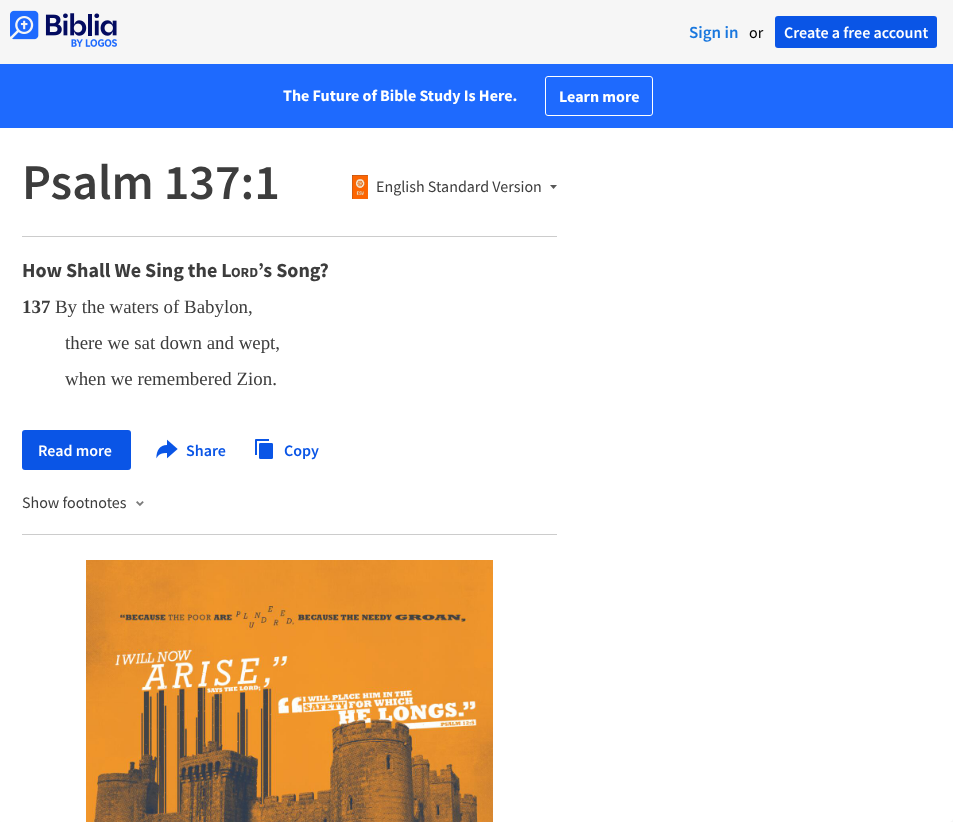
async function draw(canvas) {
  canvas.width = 953;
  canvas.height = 822;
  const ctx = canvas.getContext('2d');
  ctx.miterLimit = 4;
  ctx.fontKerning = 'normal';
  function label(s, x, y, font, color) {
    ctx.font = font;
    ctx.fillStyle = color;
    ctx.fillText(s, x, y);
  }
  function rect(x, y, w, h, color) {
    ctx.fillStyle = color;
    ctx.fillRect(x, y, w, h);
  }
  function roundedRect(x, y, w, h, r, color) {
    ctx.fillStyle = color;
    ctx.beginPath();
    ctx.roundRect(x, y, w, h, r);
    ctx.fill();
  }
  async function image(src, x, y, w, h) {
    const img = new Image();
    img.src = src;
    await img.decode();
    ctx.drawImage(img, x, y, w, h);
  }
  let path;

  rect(0, 0, 953, 822, '#f6f6f6');
  await image('assets/img1.png', 10, 10, 107, 37);
  label('Sign in', 689, 38, '600 17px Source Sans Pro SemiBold', '#1977de');
  label('or', 749, 38, '16px Source Sans Pro', '#000');
  roundedRect(775, 16, 162, 32, 3, '#0a55e6');
  label('Create a free account', 784, 38, '600 16px Source Sans Pro SemiBold', '#fff');
  rect(0, 64, 953, 64, '#1e6afe');
  label('The Future of Bible Study Is Here.', 283, 101, 'bold 16px Source Sans Pro', '#fff');
  ctx.beginPath();
  ctx.roundRect(545.5, 76.5, 107, 39, 2.5);
  ctx.strokeStyle = '#fff';
  ctx.stroke();
  label('Learn more', 559, 102, 'bold 16px Source Sans Pro', '#fff');
  roundedRect(-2, 128, 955, 694, 4, '#fff');
  rect(22, 236, 535, 1, '#ccc');
  label('Psalm 137:1', 22, 199, '600 50px Source Sans Pro SemiBold', '#3d3d3d');
  await image('assets/img2.png', 352, 175, 16, 24);
  label('English Standard Version', 376, 192, '16px Source Sans Pro', '#3d3d3d');
  ctx.fillStyle = '#585858';
  path = new Path2D('M553.5 189L557 185H550Z');
  ctx.fill(path, 'evenodd');
  label('How Shall We Sing the L', 22, 277, 'bold 20px Source Sans Pro', '#3d3d3d');
  label('ORD', 231, 277, 'bold 14px Source Sans Pro', '#3d3d3d');
  label('’s Song?', 258, 277, 'bold 20px Source Sans Pro', '#3d3d3d');
  label('137', 22, 313, 'bold 18.9px Liberation Serif', '#3d3d3d');
  label('By the waters of Babylon,', 55, 313, '18.9px Liberation Serif', '#3d3d3d');
  label('there we sat down and wept,', 65, 349, '18.9px Liberation Serif', '#3d3d3d');
  label('when we remembered Zion.', 65, 385, '18.9px Liberation Serif', '#3d3d3d');
  roundedRect(22, 430, 109, 40, 3, '#0a55e6');
  label('Read more', 38, 456, '600 16px Source Sans Pro SemiBold', '#fff');
  await image('assets/img3.png', 156, 439, 22, 20);
  label('Share', 186, 456, '600 16px Source Sans Pro SemiBold', '#0a55e6');
  await image('assets/img4.png', 255, 439, 18, 20);
  label('Copy', 284, 456, '600 16px Source Sans Pro SemiBold', '#0a55e6');
  label('Show footnotes', 22, 508, '16px Source Sans Pro', '#3d3d3d');
  await image('assets/img5.png', 136, 501, 8, 6);
  rect(22, 534, 535, 1, '#ccc');
  await image('assets/img6.png', 86, 560, 407, 262);
}

draw(document.querySelector('canvas'));
